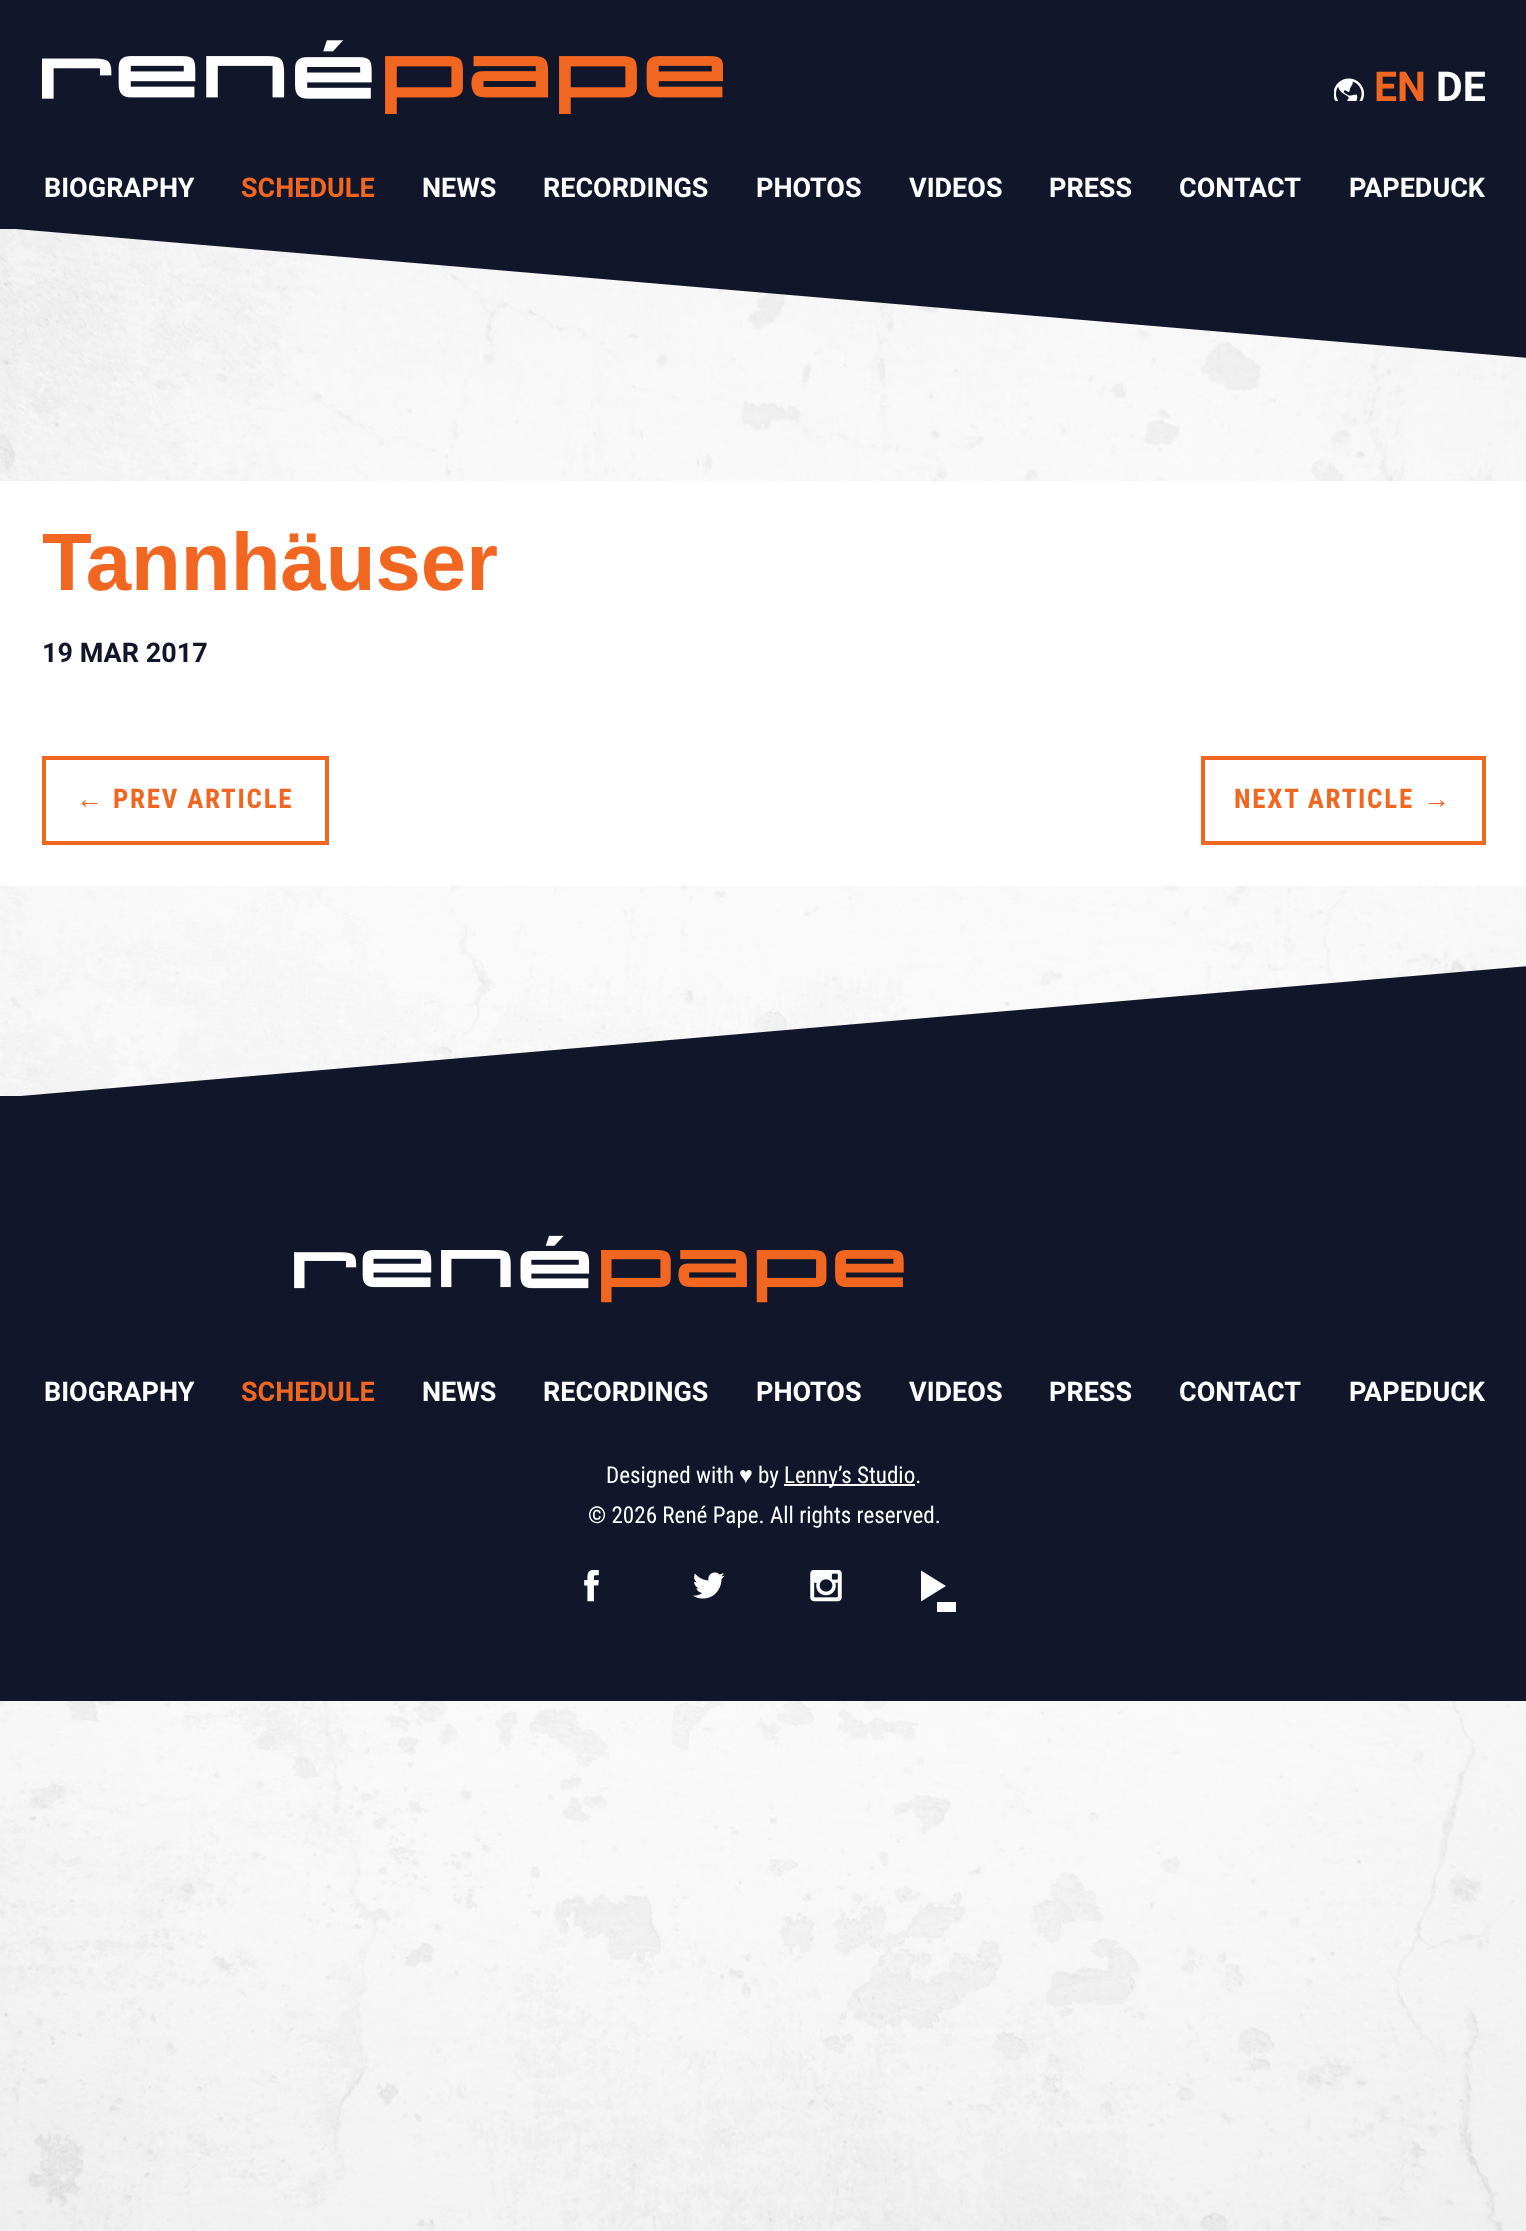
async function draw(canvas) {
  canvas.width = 1526;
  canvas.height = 2231;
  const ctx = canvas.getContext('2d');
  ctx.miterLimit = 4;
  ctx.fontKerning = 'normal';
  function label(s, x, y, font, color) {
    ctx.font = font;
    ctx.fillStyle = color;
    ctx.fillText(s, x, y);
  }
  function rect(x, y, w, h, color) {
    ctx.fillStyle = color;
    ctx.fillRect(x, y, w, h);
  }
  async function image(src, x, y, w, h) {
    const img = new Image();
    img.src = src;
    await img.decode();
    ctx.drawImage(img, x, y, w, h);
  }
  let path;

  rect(0, 0, 1526, 2231, '#fff');
  await image('assets/img1.png', 0, 229, 1526, 2002);
  rect(0, 0, 1526, 229, '#11162a');
  await image('assets/img2.png', 42, 40, 681, 74);
  await image('assets/img3.png', 1334, 78, 30, 23);
  label('EN', 1374, 101, 'bold 41px Roboto', '#f16621');
  label('DE', 1436, 101, 'bold 41px Roboto', '#fff');
  label('BIOGRAPHY', 44, 197, 'bold 27px Roboto', '#fff');
  label('SCHEDULE', 241, 197, 'bold 27px Roboto', '#f16621');
  label('NEWS', 422, 197, 'bold 27px Roboto', '#fff');
  label('RECORDINGS', 543, 197, 'bold 27px Roboto', '#fff');
  label('PHOTOS', 756, 197, 'bold 27px Roboto', '#fff');
  label('VIDEOS', 909, 197, 'bold 27px Roboto', '#fff');
  label('PRESS', 1049, 197, 'bold 27px Roboto', '#fff');
  label('CONTACT', 1179, 197, 'bold 27px Roboto', '#fff');
  label('PAPEDUCK', 1349, 197, 'bold 27px Roboto', '#fff');
  ctx.save();
  ctx.beginPath();
  ctx.rect(2, 229, 1524, 129);
  ctx.clip();
  ctx.fillStyle = '#11162a';
  path = new Path2D('M4 228H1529V358Z');
  ctx.fill(path);
  ctx.restore();
  rect(0, 481, 1526, 405, '#fff');
  label('Tannhäuser', 42, 590, 'bold 81.5px Liberation Sans', '#f16621');
  label('19 MAR 2017', 42, 662, 'bold 27px Roboto', '#11162a');
  ctx.strokeStyle = '#f16621';
  ctx.lineWidth = 4;
  ctx.strokeRect(44, 758, 283, 85);
  ctx.letterSpacing = '1.75px';
  label('←', 76, 808, 'bold 27px Liberation Sans', '#f16621');
  label('PREV ARTICLE', 113, 808, 'bold 27px Roboto Condensed', '#f16621');
  ctx.strokeRect(1203, 758, 281, 85);
  label('NEXT ARTICLE', 1234, 808, 'bold 27px Roboto Condensed', '#f16621');
  label('→', 1423, 808, 'bold 27px Liberation Sans', '#f16621');
  ctx.save();
  ctx.beginPath();
  ctx.rect(7, 966, 1519, 130);
  ctx.clip();
  ctx.fillStyle = '#11162a';
  path = new Path2D('M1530 966V1097H9Z');
  ctx.fill(path);
  ctx.restore();
  rect(0, 1096, 1526, 605, '#11162a');
  await image('assets/img4.png', 294, 1235, 610, 68);
  ctx.letterSpacing = '0px';
  label('BIOGRAPHY', 44, 1401, 'bold 27px Roboto', '#fff');
  label('SCHEDULE', 241, 1401, 'bold 27px Roboto', '#f16621');
  label('NEWS', 422, 1401, 'bold 27px Roboto', '#fff');
  label('RECORDINGS', 543, 1401, 'bold 27px Roboto', '#fff');
  label('PHOTOS', 756, 1401, 'bold 27px Roboto', '#fff');
  label('VIDEOS', 909, 1401, 'bold 27px Roboto', '#fff');
  label('PRESS', 1049, 1401, 'bold 27px Roboto', '#fff');
  label('CONTACT', 1179, 1401, 'bold 27px Roboto', '#fff');
  label('PAPEDUCK', 1349, 1401, 'bold 27px Roboto', '#fff');
  label('Designed with', 606, 1483, '23.1px Roboto Condensed', '#fff');
  label('♥︎', 739, 1483, '23.1px Liberation Sans', '#fff');
  label('by', 758, 1483, '23.1px Roboto Condensed', '#fff');
  rect(784, 1484, 131, 2, '#fff');
  label('Lenny’s Studio.', 784, 1483, '23.1px Roboto Condensed', '#fff');
  label('© 2026 René Pape. All rights reserved.', 588, 1523, '23.1px Roboto Condensed', '#fff');
  await image('assets/img5.png', 584, 1570, 15, 32);
  await image('assets/img6.png', 693, 1572, 32, 27);
  await image('assets/img7.png', 810, 1570, 32, 32);
  ctx.save();
  ctx.beginPath();
  ctx.rect(921, 1570, 36, 42);
  ctx.clip();
  path = new Path2D('M937 1612V1602H956V1612ZM920 1570L946 1586L920 1602Z');
  ctx.fill(path);
  ctx.restore();
}

draw(document.querySelector('canvas'));
